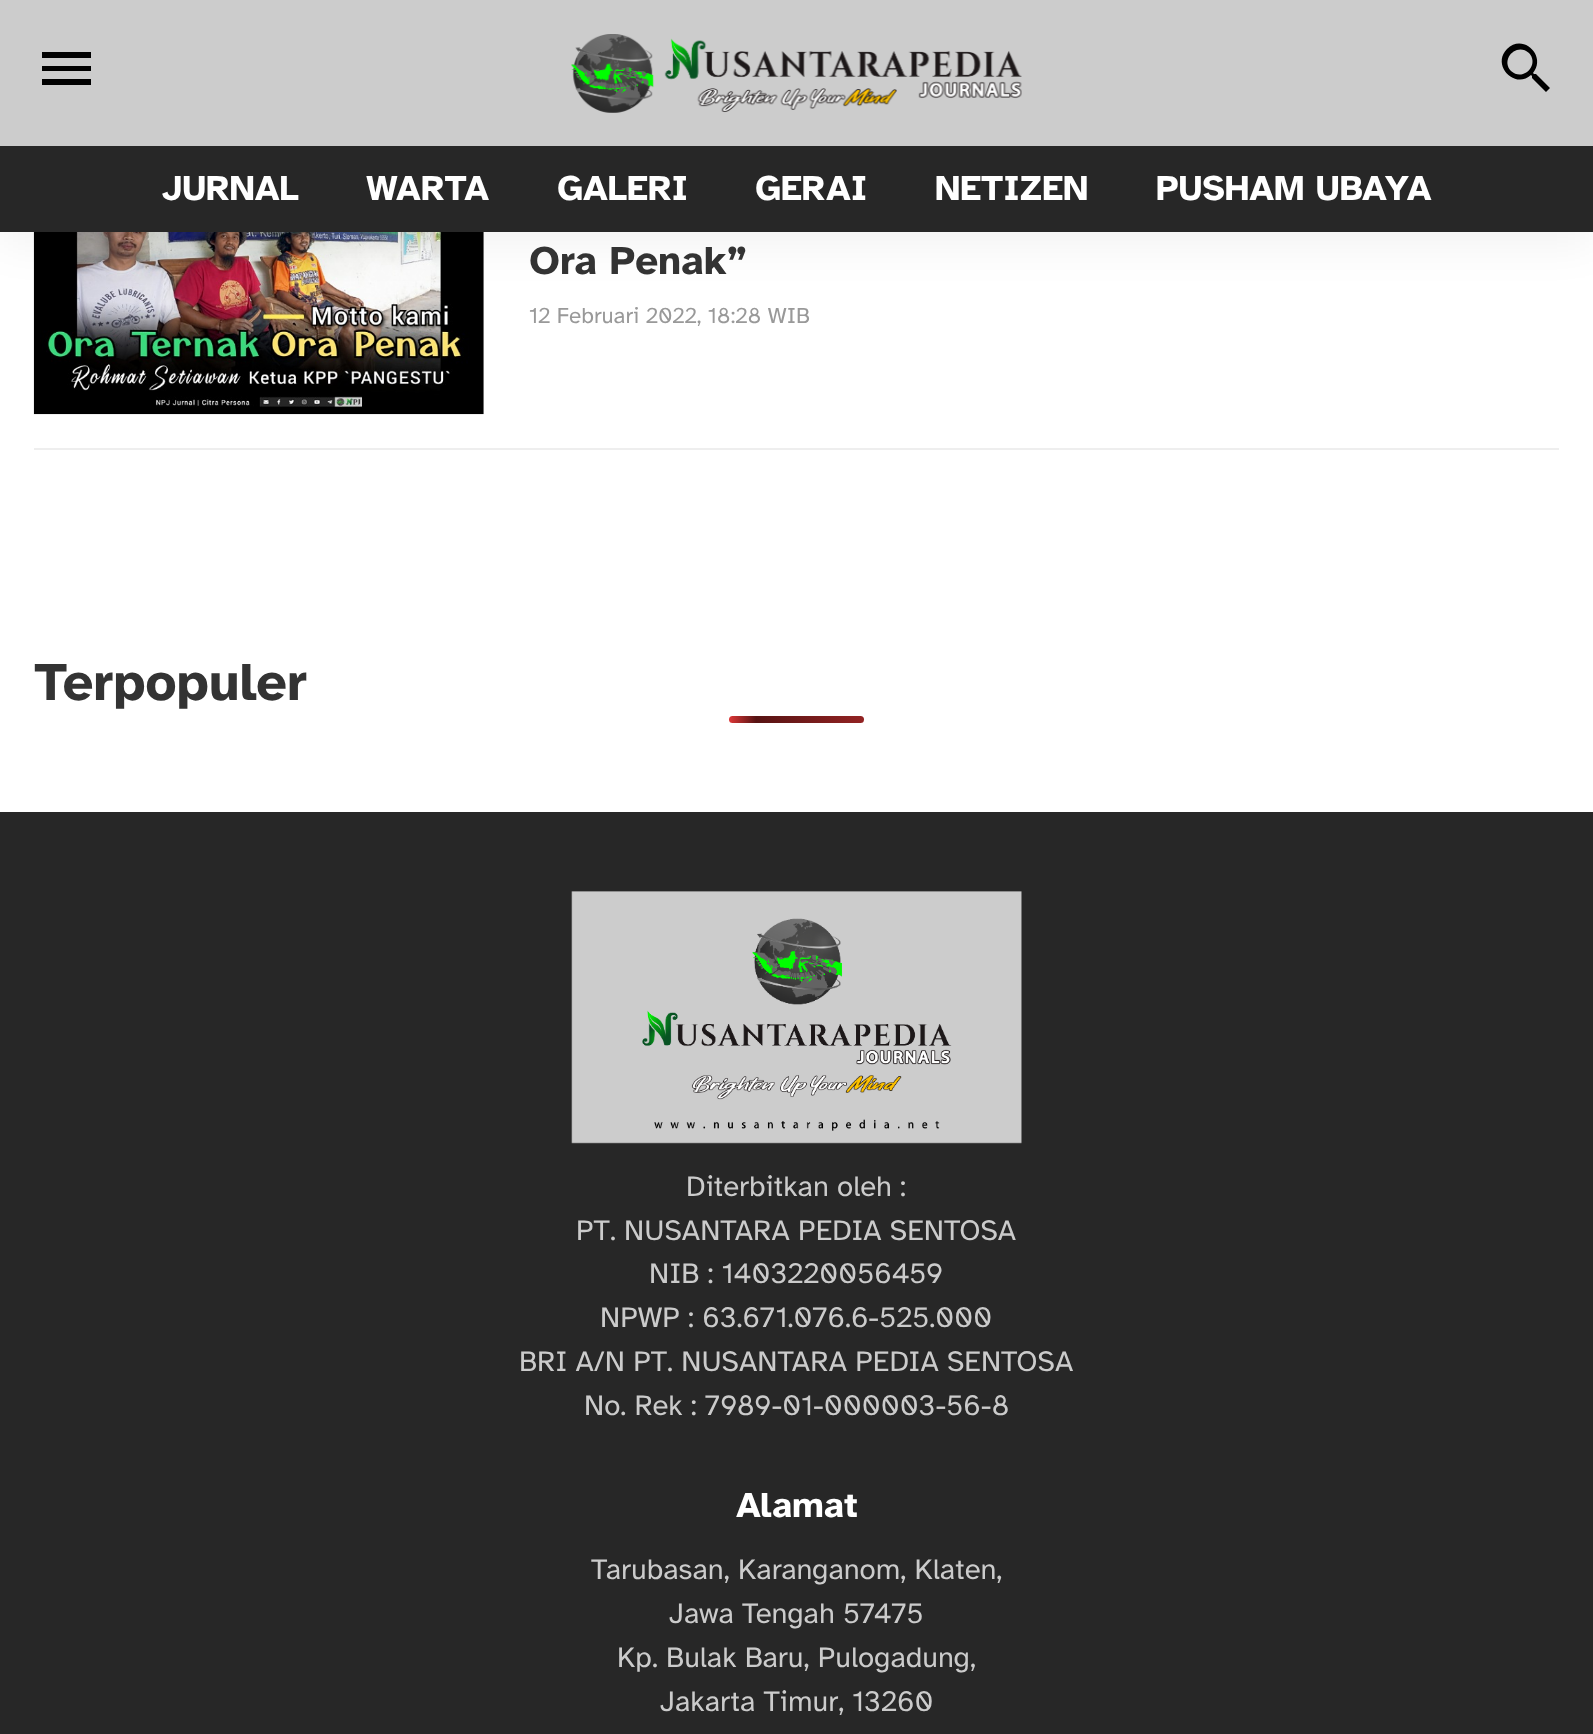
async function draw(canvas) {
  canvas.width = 1593;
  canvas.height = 1734;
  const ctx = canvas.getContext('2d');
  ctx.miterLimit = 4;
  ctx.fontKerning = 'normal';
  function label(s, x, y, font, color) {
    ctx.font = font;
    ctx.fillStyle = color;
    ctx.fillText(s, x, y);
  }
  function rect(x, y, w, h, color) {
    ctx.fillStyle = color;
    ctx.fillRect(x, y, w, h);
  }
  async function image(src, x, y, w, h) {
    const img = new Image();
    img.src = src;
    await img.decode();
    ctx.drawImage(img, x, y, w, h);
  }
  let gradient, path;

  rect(0, 0, 1593, 1734, '#fff');
  await image('assets/img2.png', 33, 232, 451, 183);
  ctx.fillStyle = '#0000000d';
  ctx.filter = 'blur(21.5px)';
  ctx.beginPath();
  ctx.rect(0, 14, 1593, 231);
  ctx.fill();
  ctx.filter = 'none';
  rect(0, 0, 1593, 146, '#ccc');
  await image('assets/img1.png', 571, 34, 451, 79);
  ctx.fillStyle = '#000';
  path = new Path2D('M42 52H91V58H42ZM42 71V66H91V71ZM42 85V79H91V85Z');
  ctx.fill(path);
  path = new Path2D('M1511 71C1523 82 1540 65 1529 53C1517 42 1500 59 1511 71ZM1536 74L1550 88L1546 92L1532 78V76L1531 75C1515 90 1491 65 1507 49C1523 33 1547 56 1533 73L1534 74Z');
  ctx.fill(path);
  rect(0, 146, 1593, 86, '#272727');
  label('JURNAL', 162, 200, 'bold 36px Atkinson Hyperlegible', '#fff');
  label('WARTA', 366, 200, 'bold 36px Atkinson Hyperlegible', '#fff');
  label('GALERI', 557, 200, 'bold 36px Atkinson Hyperlegible', '#fff');
  label('GERAI', 755, 200, 'bold 36px Atkinson Hyperlegible', '#fff');
  label('NETIZEN', 935, 200, 'bold 36px Atkinson Hyperlegible', '#fff');
  label('PUSHAM UBAYA', 1156, 200, 'bold 36px Atkinson Hyperlegible', '#fff');
  rect(34, 448, 1525, 2, '#eee');
  label('Ora Penak”', 529, 274, 'bold 40.5px Atkinson Hyperlegible', '#333');
  label('12 Februari 2022, 18:28 WIB', 529, 323, '22.5px Atkinson Hyperlegible', '#999');
  label('Terpopuler', 34, 700, 'bold 54px Atkinson Hyperlegible', '#333');
  gradient = ctx.createLinearGradient(729, 719, 999, 719);
  gradient.addColorStop(0, '#dd3737');
  gradient.addColorStop(0.1, '#571313');
  gradient.addColorStop(1, '#dd3737');
  ctx.fillStyle = gradient;
  ctx.beginPath();
  ctx.roundRect(729, 716, 135, 7, 3.5);
  ctx.fill();
  rect(0, 812, 1593, 922, '#272727');
  await image('assets/img3.png', 571, 891, 451, 253);
  label('Diterbitkan oleh :', 686, 1196, '29.25px Atkinson Hyperlegible', '#cbcbcb');
  label('PT. NUSANTARA PEDIA SENTOSA', 576, 1240, '29.25px Atkinson Hyperlegible', '#cbcbcb');
  label('NIB : 1403220056459', 649, 1283, '29.25px Atkinson Hyperlegible', '#cbcbcb');
  label('NPWP : 63.671.076.6-525.000', 600, 1327, '29.25px Atkinson Hyperlegible', '#cbcbcb');
  label('BRI A/N PT. NUSANTARA PEDIA SENTOSA', 519, 1371, '29.25px Atkinson Hyperlegible', '#cbcbcb');
  label('No. Rek : 7989-01-000003-56-8', 584, 1415, '29.25px Atkinson Hyperlegible', '#cbcbcb');
  label('Alamat', 736, 1517, 'bold 36px Atkinson Hyperlegible', '#fff');
  label('Tarubasan, Karanganom, Klaten,', 591, 1579, '29.25px Atkinson Hyperlegible', '#cbcbcb');
  label('Jawa Tengah 57475', 669, 1623, '29.25px Atkinson Hyperlegible', '#cbcbcb');
  label('Kp. Bulak Baru, Pulogadung,', 617, 1667, '29.25px Atkinson Hyperlegible', '#cbcbcb');
  label('Jakarta Timur, 13260', 660, 1711, '29.25px Atkinson Hyperlegible', '#cbcbcb');
}

draw(document.querySelector('canvas'));
